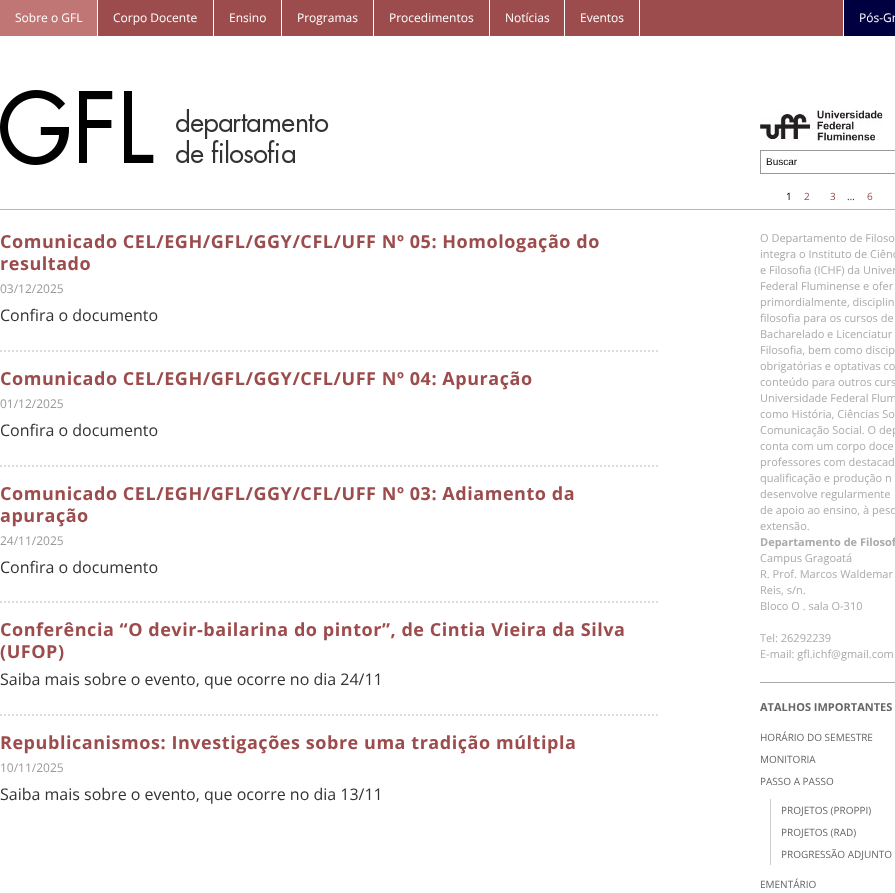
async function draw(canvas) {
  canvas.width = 895;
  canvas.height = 893;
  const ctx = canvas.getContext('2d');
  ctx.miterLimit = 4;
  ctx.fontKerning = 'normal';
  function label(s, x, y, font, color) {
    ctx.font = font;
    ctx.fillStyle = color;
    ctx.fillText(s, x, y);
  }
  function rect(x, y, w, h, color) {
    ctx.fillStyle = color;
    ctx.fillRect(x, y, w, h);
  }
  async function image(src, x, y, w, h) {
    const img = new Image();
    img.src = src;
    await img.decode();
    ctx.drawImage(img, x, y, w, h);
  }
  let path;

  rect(0, 0, 895, 893, '#fff');
  rect(98, 0, 745, 36, '#9c4c4c');
  rect(0, 0, 97, 36, '#c17676');
  label('Sobre o GFL', 15, 22, '12px Open Sans', '#fff');
  rect(213, 0, 1, 36, '#fff');
  label('Corpo Docente', 113, 22, '12px Open Sans', '#fff');
  rect(281, 0, 1, 36, '#fff');
  label('Ensino', 229, 22, '12px Open Sans', '#fff');
  rect(373, 0, 1, 36, '#fff');
  label('Programas', 297, 22, '12px Open Sans', '#fff');
  rect(489, 0, 1, 36, '#fff');
  label('Procedimentos', 389, 22, '12px Open Sans', '#fff');
  rect(564, 0, 1, 36, '#fff');
  label('Notícias', 505, 22, '12px Open Sans', '#fff');
  rect(639, 0, 1, 36, '#fff');
  label('Eventos', 580, 22, '12px Open Sans', '#fff');
  rect(844, 0, 51, 36, '#000040');
  label('Pós-Gr', 859, 22, '12px Open Sans', '#fff');
  await image('assets/img1.png', 0, 90, 329, 75);
  await image('assets/img2.png', 760, 110, 123, 31);
  ctx.strokeStyle = '#999';
  ctx.strokeRect(760.5, 150.5, 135, 23);
  label('Buscar', 766, 165, '10px Liberation Sans', '#000');
  label('1', 786, 200, '10px Open Sans', '#000');
  label('2', 804, 200, '10px Open Sans', '#9c4c4c');
  label('3', 830, 200, '10px Open Sans', '#9c4c4c');
  label('…', 847, 200, '10px Open Sans', '#333');
  label('6', 867, 200, '10px Open Sans', '#9c4c4c');
  rect(0, 209, 895, 1, '#d6a7a7');
  path = new Path2D('M0 351H660');
  ctx.strokeStyle = '#ddd';
  ctx.lineWidth = 2;
  ctx.setLineDash([2, 2]);
  ctx.stroke(path);
  ctx.letterSpacing = '0.55px';
  label('Comunicado CEL/EGH/GFL/GGY/CFL/UFF Nº 05: Homologação do', 0, 248, 'bold 18px Open Sans', '#9c4c4c');
  label('resultado', 0, 270, 'bold 18px Open Sans', '#9c4c4c');
  ctx.letterSpacing = '0px';
  label('03/12/2025', 0, 293, '12px Open Sans', '#999');
  label('Confira o documento', 0, 321, '16px Open Sans', '#333');
  path = new Path2D('M0 466H660');
  ctx.stroke(path);
  ctx.letterSpacing = '0.55px';
  label('Comunicado CEL/EGH/GFL/GGY/CFL/UFF Nº 04: Apuração', 0, 385, 'bold 18px Open Sans', '#9c4c4c');
  ctx.letterSpacing = '0px';
  label('01/12/2025', 0, 408, '12px Open Sans', '#999');
  label('Confira o documento', 0, 436, '16px Open Sans', '#333');
  path = new Path2D('M0 602H660');
  ctx.stroke(path);
  ctx.letterSpacing = '0.55px';
  label('Comunicado CEL/EGH/GFL/GGY/CFL/UFF Nº 03: Adiamento da', 0, 500, 'bold 18px Open Sans', '#9c4c4c');
  label('apuração', 0, 522, 'bold 18px Open Sans', '#9c4c4c');
  ctx.letterSpacing = '0px';
  label('24/11/2025', 0, 545, '12px Open Sans', '#999');
  label('Confira o documento', 0, 573, '16px Open Sans', '#333');
  path = new Path2D('M0 715H660');
  ctx.stroke(path);
  ctx.letterSpacing = '0.55px';
  label('Conferência “O devir-bailarina do pintor”, de Cintia Vieira da Silva', 0, 636, 'bold 18px Open Sans', '#9c4c4c');
  label('(UFOP)', 0, 658, 'bold 18px Open Sans', '#9c4c4c');
  ctx.letterSpacing = '0px';
  label('Saiba mais sobre o evento, que ocorre no dia 24/11', 0, 685, '16px Open Sans', '#333');
  ctx.letterSpacing = '0.55px';
  label('Republicanismos: Investigações sobre uma tradição múltipla', 0, 749, 'bold 18px Open Sans', '#9c4c4c');
  ctx.letterSpacing = '0px';
  label('10/11/2025', 0, 772, '12px Open Sans', '#999');
  label('Saiba mais sobre o evento, que ocorre no dia 13/11', 0, 800, '16px Open Sans', '#333');
  label('O Departamento de Filoso', 760, 242, '11px Open Sans', '#aaa');
  label('integra o Instituto de Ciênc', 760, 258, '11px Open Sans', '#aaa');
  label('e Filosofia (ICHF) da Univer', 760, 274, '11px Open Sans', '#aaa');
  label('Federal Fluminense e ofer', 760, 290, '11px Open Sans', '#aaa');
  label('primordialmente, disciplin', 760, 306, '11px Open Sans', '#aaa');
  label('filosofia para os cursos de', 760, 322, '11px Open Sans', '#aaa');
  label('Bacharelado e Licenciatur', 760, 338, '11px Open Sans', '#aaa');
  label('Filosofia, bem como discip', 760, 354, '11px Open Sans', '#aaa');
  label('obrigatórias e optativas co', 760, 370, '11px Open Sans', '#aaa');
  label('conteúdo para outros curs', 760, 386, '11px Open Sans', '#aaa');
  label('Universidade Federal Flum', 760, 402, '11px Open Sans', '#aaa');
  label('como História, Ciências So', 760, 418, '11px Open Sans', '#aaa');
  label('Comunicação Social. O dep', 760, 434, '11px Open Sans', '#aaa');
  label('conta com um corpo doce', 760, 450, '11px Open Sans', '#aaa');
  label('professores com destacad', 760, 466, '11px Open Sans', '#aaa');
  label('qualificação e produção n', 760, 482, '11px Open Sans', '#aaa');
  label('desenvolve regularmente', 760, 498, '11px Open Sans', '#aaa');
  label('de apoio ao ensino, à pesq', 760, 514, '11px Open Sans', '#aaa');
  label('extensão.', 760, 530, '11px Open Sans', '#aaa');
  label('Departamento de Filosof', 760, 546, 'bold 11px Open Sans', '#aaa');
  label('Campus Gragoatá', 760, 562, '11px Open Sans', '#aaa');
  label('R. Prof. Marcos Waldemar', 760, 578, '11px Open Sans', '#aaa');
  label('Reis, s/n.', 760, 594, '11px Open Sans', '#aaa');
  label('Bloco O . sala O-310', 760, 610, '11px Open Sans', '#aaa');
  label('Tel: 26292239', 760, 642, '11px Open Sans', '#aaa');
  label('E-mail: gfl.ichf@gmail.com', 760, 658, '11px Open Sans', '#aaa');
  rect(760, 682, 135, 1, '#aaa');
  label('ATALHOS IMPORTANTES', 760, 711, 'bold 11px Open Sans', '#666');
  label('HORÁRIO DO SEMESTRE', 760, 741, '10px Open Sans', '#666');
  label('MONITORIA', 760, 763, '10px Open Sans', '#666');
  label('PASSO A PASSO', 760, 785, '10px Open Sans', '#666');
  rect(770, 799, 1, 66, '#ccc');
  label('PROJETOS (PROPPI)', 781, 814, '10px Open Sans', '#666');
  label('PROJETOS (RAD)', 781, 836, '10px Open Sans', '#666');
  label('PROGRESSÃO ADJUNTO', 781, 858, '10px Open Sans', '#666');
  label('EMENTÁRIO', 760, 888, '10px Open Sans', '#666');
}

draw(document.querySelector('canvas'));
